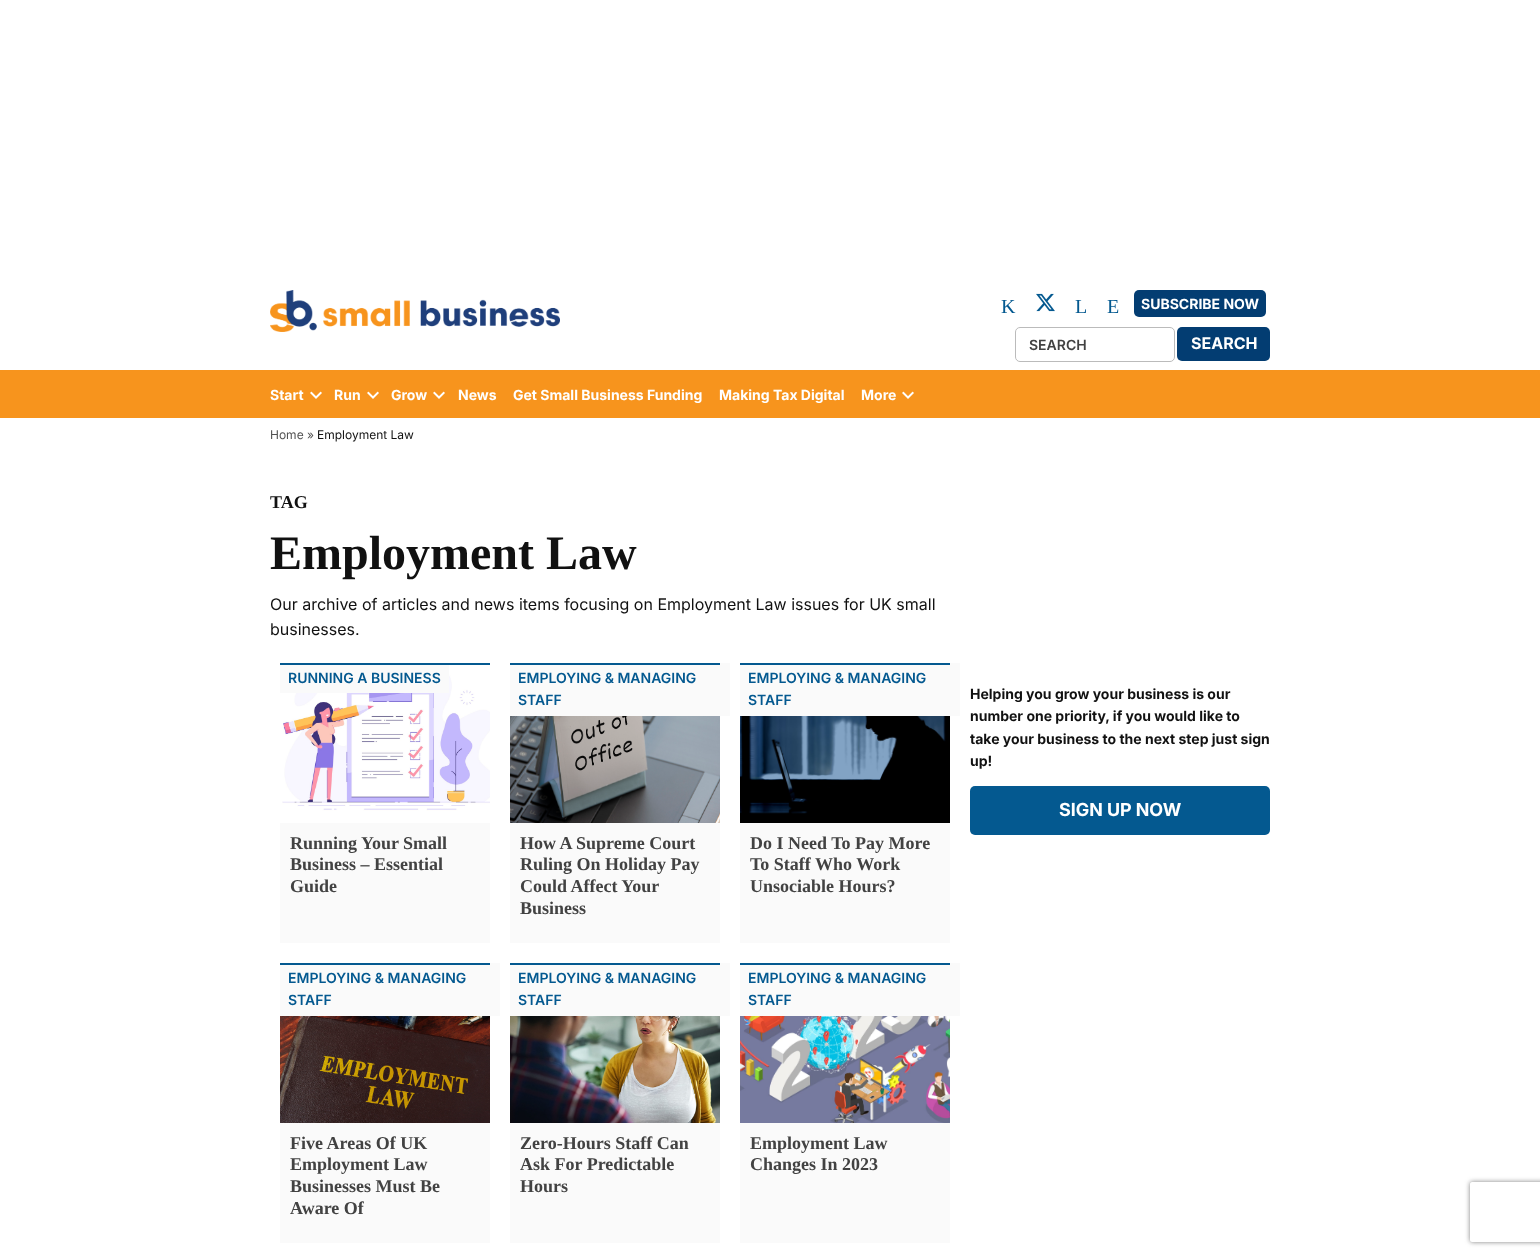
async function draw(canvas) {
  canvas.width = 1540;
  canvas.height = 1256;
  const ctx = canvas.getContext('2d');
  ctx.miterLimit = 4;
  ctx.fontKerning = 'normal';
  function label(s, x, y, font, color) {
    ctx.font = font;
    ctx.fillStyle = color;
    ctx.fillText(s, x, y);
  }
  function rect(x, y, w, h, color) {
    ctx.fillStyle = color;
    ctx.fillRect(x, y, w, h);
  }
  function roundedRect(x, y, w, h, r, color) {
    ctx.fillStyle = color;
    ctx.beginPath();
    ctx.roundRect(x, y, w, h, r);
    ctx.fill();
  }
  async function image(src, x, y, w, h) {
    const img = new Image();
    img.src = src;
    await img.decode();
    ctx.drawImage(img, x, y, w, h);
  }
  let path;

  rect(0, 0, 1540, 1256, '#fff');
  await image('assets/img1.png', 270, 290, 290, 42);
  label('K', 1001, 313, '20px Liberation Serif', '#045990');
  await image('assets/img2.png', 1036, 293, 19, 19);
  label('L', 1075, 313, '20px Liberation Serif', '#045990');
  label('E', 1107, 313, '20px Liberation Serif', '#045990');
  roundedRect(1134, 290, 132, 27, 5, '#033d72');
  label('SUBSCRIBE NOW', 1141, 309, 'bold 14px Inter', '#fff');
  rect(0, 370, 270, 48, '#f7941d');
  rect(270, 370, 1270, 48, '#f7941d');
  ctx.beginPath();
  ctx.roundRect(1015.5, 327.5, 159, 34, 4.5);
  ctx.strokeStyle = '#bbb';
  ctx.stroke();
  label('SEARCH', 1029, 350, '600 14px Inter', '#424242');
  roundedRect(1177, 327, 93, 34, 5, '#033d72');
  label('SEARCH', 1191, 349, 'bold 16px Inter', '#fff');
  label('Start', 270, 400, 'bold 14px Inter', '#fff');
  await image('assets/img3.png', 310, 391, 12, 8);
  label('Run', 334, 400, 'bold 14px Inter', '#fff');
  await image('assets/img3.png', 367, 391, 12, 8);
  label('Grow', 391, 400, 'bold 14px Inter', '#fff');
  await image('assets/img3.png', 433, 391, 12, 8);
  label('News', 458, 400, 'bold 14px Inter', '#fff');
  label('Get Small Business Funding', 513, 400, 'bold 14px Inter', '#fff');
  label('Making Tax Digital', 719, 400, 'bold 14px Inter', '#fff');
  label('More', 861, 400, 'bold 14px Inter', '#fff');
  await image('assets/img3.png', 902, 391, 12, 8);
  label('Home »', 270, 439, '12px Inter', '#515151');
  label('Employment Law', 317, 439, '12px Inter', '#111');
  label('TAG', 270, 508, 'bold 18px Liberation Serif', '#111');
  label('Employment Law', 270, 569, 'bold 48px Liberation Serif', '#111');
  label('Our archive of articles and news items focusing on Employment Law issues for UK small', 270, 610, '16px Inter', '#111');
  label('businesses.', 270, 635, '16px Inter', '#111');
  rect(280, 663, 210, 2, '#045990');
  await image('assets/img4.png', 282, 670, 208, 141);
  rect(280, 823, 210, 120, '#fafafa');
  rect(280, 665, 169, 28, '#fafafa');
  label('RUNNING A BUSINESS', 288, 683, '600 14px Inter', '#045990');
  label('Running Your Small', 290, 849, 'bold 18px Liberation Serif', '#424242');
  label('Business – Essential', 290, 870, 'bold 18px Liberation Serif', '#424242');
  label('Guide', 290, 892, 'bold 18px Liberation Serif', '#424242');
  rect(510, 663, 220, 53, '#fafafa');
  rect(510, 663, 210, 2, '#045990');
  rect(510, 823, 210, 120, '#fafafa');
  label('EMPLOYING & MANAGING', 518, 683, '600 14px Inter', '#045990');
  label('STAFF', 518, 705, '600 14px Inter', '#045990');
  label('How A Supreme Court', 520, 849, 'bold 18px Liberation Serif', '#424242');
  label('Ruling On Holiday Pay', 520, 870, 'bold 18px Liberation Serif', '#424242');
  label('Could Affect Your', 520, 892, 'bold 18px Liberation Serif', '#424242');
  label('Business', 520, 914, 'bold 18px Liberation Serif', '#424242');
  await image('assets/img5.png', 510, 716, 210, 107);
  rect(740, 663, 220, 53, '#fafafa');
  rect(740, 663, 210, 2, '#045990');
  rect(740, 823, 210, 120, '#fafafa');
  label('EMPLOYING & MANAGING', 748, 683, '600 14px Inter', '#045990');
  label('STAFF', 748, 705, '600 14px Inter', '#045990');
  label('Do I Need To Pay More', 750, 849, 'bold 18px Liberation Serif', '#424242');
  label('To Staff Who Work', 750, 870, 'bold 18px Liberation Serif', '#424242');
  label('Unsociable Hours?', 750, 892, 'bold 18px Liberation Serif', '#424242');
  await image('assets/img6.png', 740, 716, 210, 107);
  rect(280, 963, 220, 53, '#fafafa');
  rect(280, 963, 210, 2, '#045990');
  rect(280, 1123, 210, 120, '#fafafa');
  label('EMPLOYING & MANAGING', 288, 983, '600 14px Inter', '#045990');
  label('STAFF', 288, 1005, '600 14px Inter', '#045990');
  label('Five Areas Of UK', 290, 1149, 'bold 18px Liberation Serif', '#424242');
  label('Employment Law', 290, 1170, 'bold 18px Liberation Serif', '#424242');
  label('Businesses Must Be', 290, 1192, 'bold 18px Liberation Serif', '#424242');
  label('Aware Of', 290, 1214, 'bold 18px Liberation Serif', '#424242');
  await image('assets/img7.png', 280, 1016, 210, 107);
  rect(510, 963, 220, 53, '#fafafa');
  rect(510, 963, 210, 2, '#045990');
  rect(510, 1123, 210, 120, '#fafafa');
  label('EMPLOYING & MANAGING', 518, 983, '600 14px Inter', '#045990');
  label('STAFF', 518, 1005, '600 14px Inter', '#045990');
  label('Zero-Hours Staff Can', 520, 1149, 'bold 18px Liberation Serif', '#424242');
  label('Ask For Predictable', 520, 1170, 'bold 18px Liberation Serif', '#424242');
  label('Hours', 520, 1192, 'bold 18px Liberation Serif', '#424242');
  await image('assets/img8.png', 510, 1016, 210, 107);
  rect(740, 963, 220, 53, '#fafafa');
  rect(740, 963, 210, 2, '#045990');
  rect(740, 1123, 210, 120, '#fafafa');
  label('EMPLOYING & MANAGING', 748, 983, '600 14px Inter', '#045990');
  label('STAFF', 748, 1005, '600 14px Inter', '#045990');
  label('Employment Law', 750, 1149, 'bold 18px Liberation Serif', '#424242');
  label('Changes In 2023', 750, 1170, 'bold 18px Liberation Serif', '#424242');
  await image('assets/img9.png', 740, 1016, 210, 107);
  label('Helping you grow your business is our', 970, 699, 'bold 14px Inter', '#111');
  label('number one priority, if you would like to', 970, 721, 'bold 14px Inter', '#111');
  label('take your business to the next step just sign', 970, 744, 'bold 14px Inter', '#111');
  label('up!', 970, 766, 'bold 14px Inter', '#111');
  roundedRect(970, 786, 300, 49, 5, '#045990');
  label('SIGN UP NOW', 1059, 816, 'bold 18px "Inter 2"', '#fff');
  ctx.save();
  path = new Path2D('M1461 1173H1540V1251H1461ZM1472 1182H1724C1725 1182 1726 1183 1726 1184V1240C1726 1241 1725 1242 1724 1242H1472C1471 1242 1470 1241 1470 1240V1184C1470 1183 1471 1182 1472 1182Z');
  ctx.clip(path, 'evenodd');
  ctx.fillStyle = '#808080';
  ctx.filter = 'blur(2.5px)';
  ctx.beginPath();
  ctx.roundRect(1470, 1182, 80, 60, 2);
  ctx.fill();
  ctx.filter = 'none';
  ctx.restore();
}

draw(document.querySelector('canvas'));
